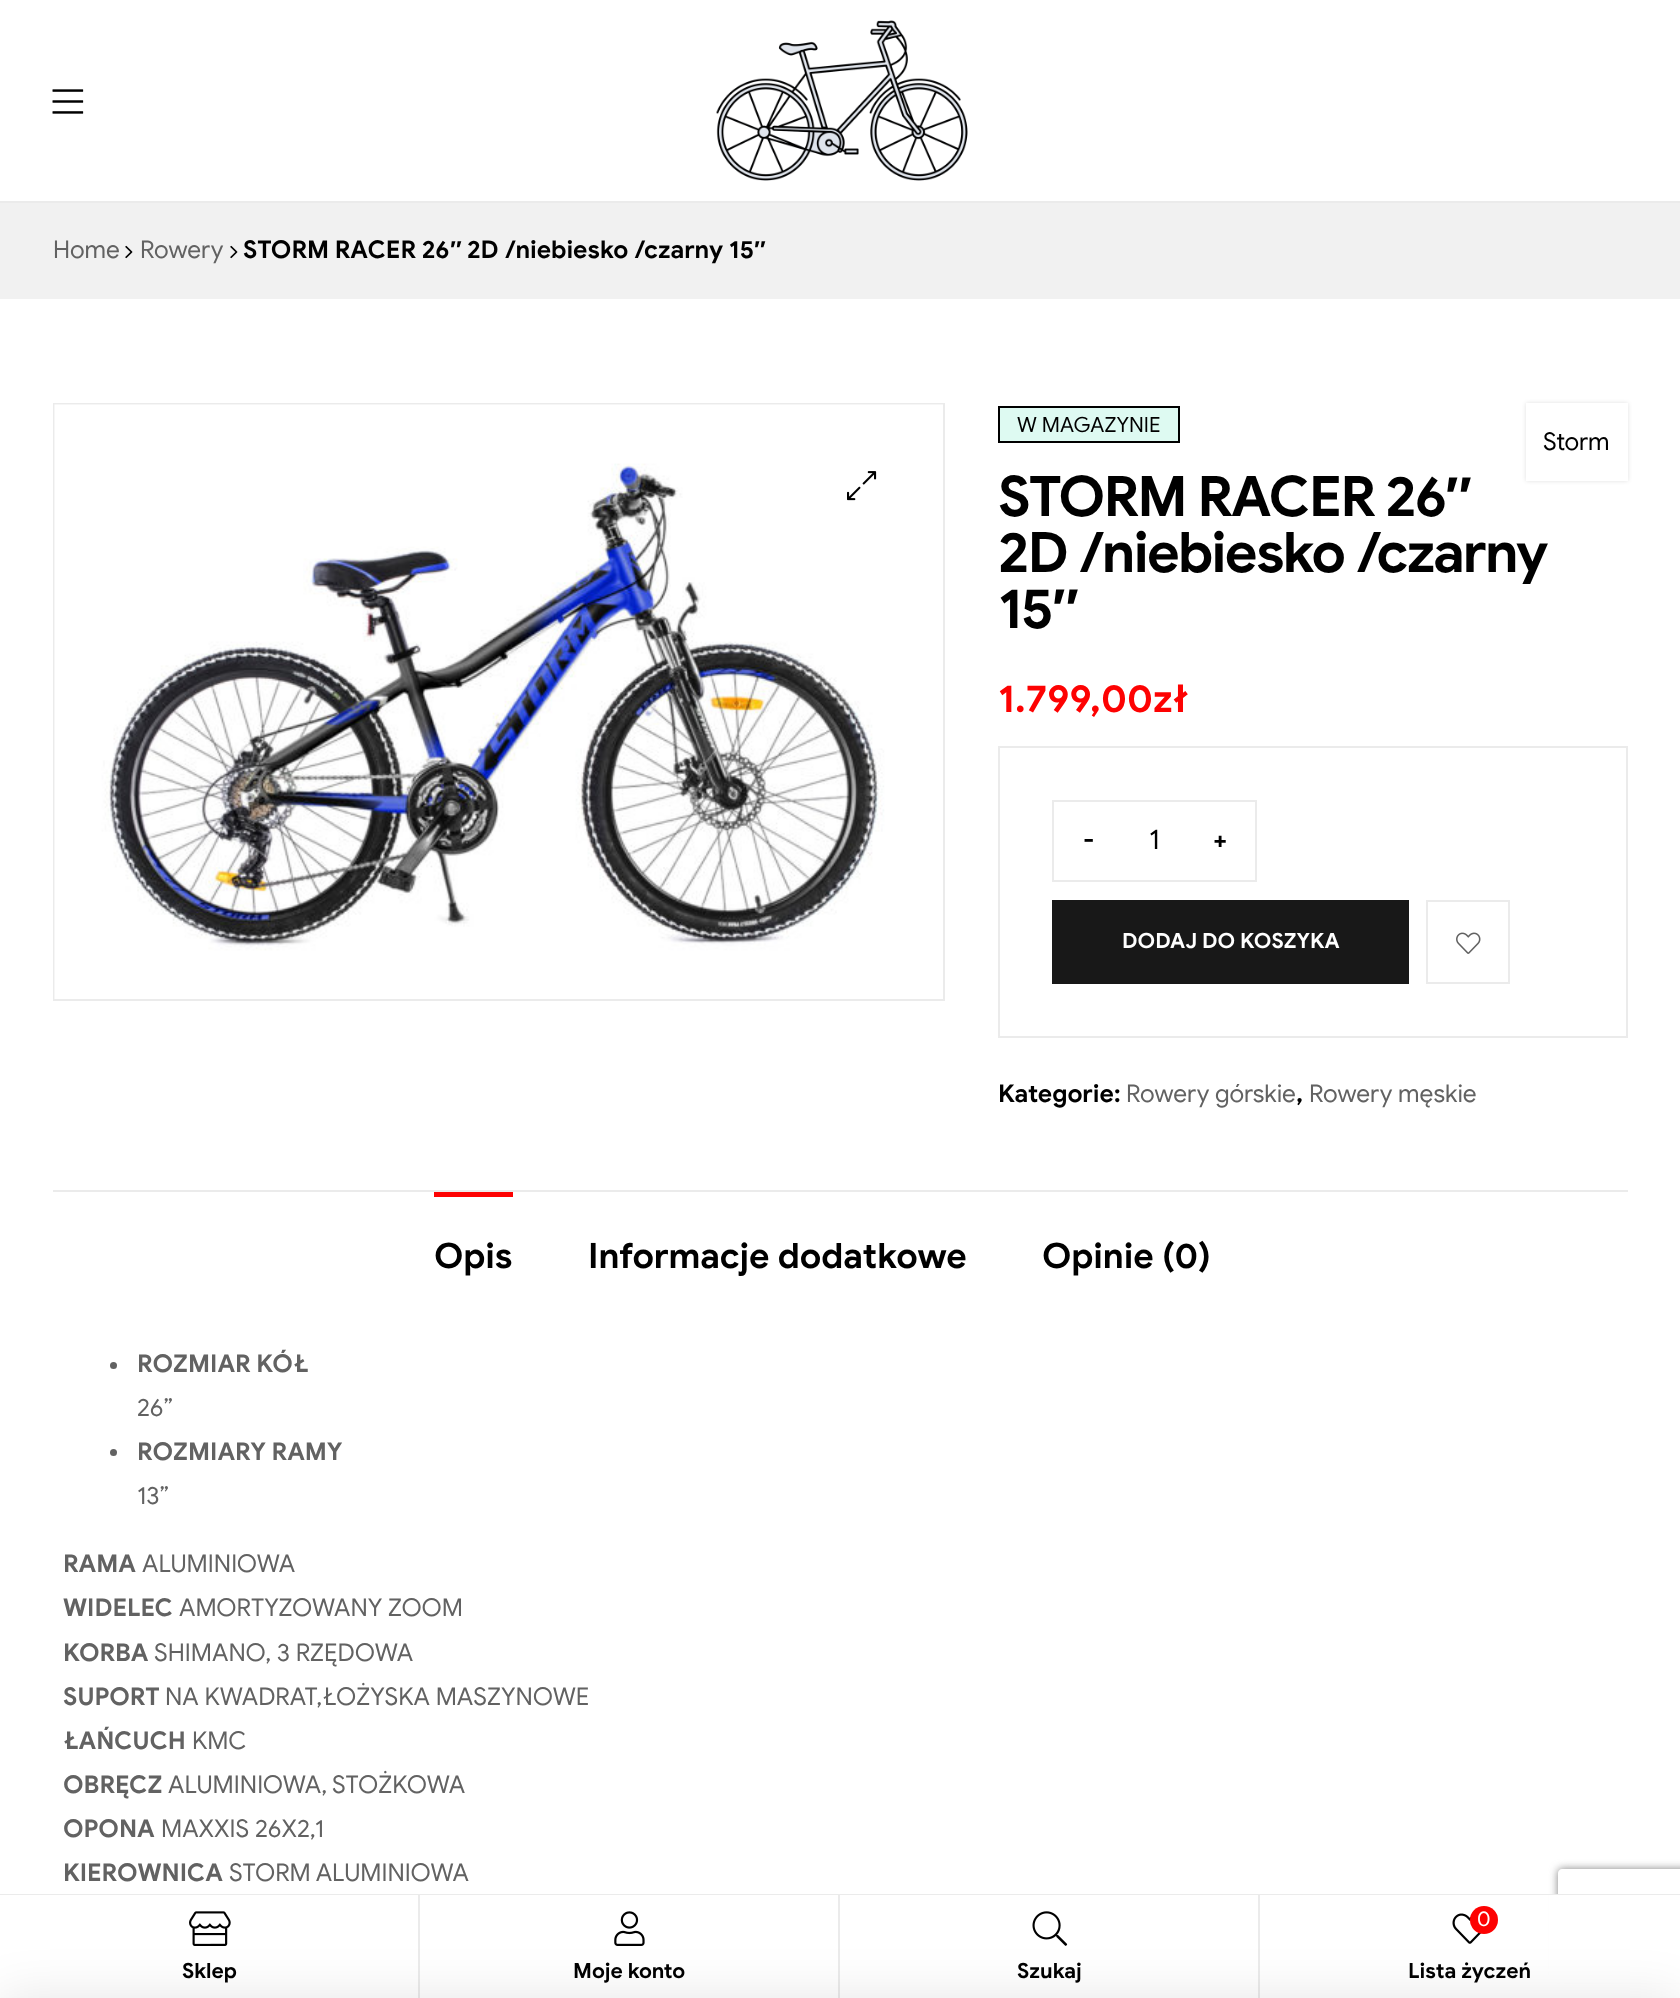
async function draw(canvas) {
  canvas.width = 1680;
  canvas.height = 1998;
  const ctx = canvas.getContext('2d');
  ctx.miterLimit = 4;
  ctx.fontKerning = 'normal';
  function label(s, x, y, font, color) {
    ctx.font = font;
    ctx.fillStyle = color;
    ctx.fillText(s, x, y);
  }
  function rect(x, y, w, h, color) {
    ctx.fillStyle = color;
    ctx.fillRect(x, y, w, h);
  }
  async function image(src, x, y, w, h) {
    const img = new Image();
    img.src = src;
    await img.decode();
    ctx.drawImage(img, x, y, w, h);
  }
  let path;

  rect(0, 0, 1680, 1998, '#fff');
  rect(0, 201, 1680, 2, '#ebebeb');
  await image('assets/img1.png', 52, 89, 32, 25);
  await image('assets/img2.png', 716, 20, 252, 161);
  rect(0, 203, 1680, 96, '#f1f1f1');
  label('Home', 53, 258, '24.5px Google Sans', '#626262');
  await image('assets/img3.png', 125, 245, 8, 14);
  label('Rowery', 140, 258, '24.5px Google Sans', '#626262');
  await image('assets/img3.png', 230, 245, 8, 14);
  label('STORM RACER 26', 243, 258, 'bold 24.5px Google Sans', '#000');
  label('″', 450, 258, 'bold 24.5px Liberation Sans', '#000');
  label('2D /niebiesko /czarny 15', 467, 258, 'bold 24.5px Google Sans', '#000');
  label('″', 754, 258, 'bold 24.5px Liberation Sans', '#000');
  ctx.strokeStyle = '#ebebeb';
  ctx.lineWidth = 2;
  ctx.strokeRect(54, 404, 890, 596);
  await image('assets/img4.png', 54, 404, 889, 595);
  await image('assets/img5.png', 847, 471, 30, 30);
  ctx.fillStyle = '#defaf2';
  ctx.beginPath();
  ctx.rect(999, 407, 180, 35);
  ctx.fill();
  ctx.strokeStyle = '#000';
  ctx.stroke();
  label('W MAGAZYNIE', 1017, 432, '21px Google Sans', '#000');
  ctx.fillStyle = '#0000001f';
  ctx.filter = 'blur(2px)';
  ctx.beginPath();
  ctx.rect(1526, 403, 102, 78);
  ctx.fill();
  ctx.filter = 'none';
  rect(1526, 403, 102, 78, '#fff');
  label('Storm', 1543, 450, '24.5px Google Sans', '#000');
  ctx.letterSpacing = '-1.75px';
  label('STORM RACER 26', 998, 516, 'bold 56px Google Sans', '#000');
  label('″', 1445, 516, 'bold 56px Liberation Sans', '#000');
  label('2D /niebiesko /czarny', 998, 572, 'bold 56px Google Sans', '#000');
  label('15', 998, 628, 'bold 56px Google Sans', '#000');
  label('″', 1052, 628, 'bold 56px Liberation Sans', '#000');
  ctx.letterSpacing = '0px';
  label('1.799,00zł', 998, 712, 'bold 38.5px Google Sans', '#fd0202');
  ctx.strokeStyle = '#ebebeb';
  ctx.strokeRect(999, 747, 628, 290);
  ctx.strokeRect(1053, 801, 203, 80);
  label('-', 1083, 848, 'bold 24.5px Google Sans', '#000');
  label('1', 1149, 849, '28px Google Sans', '#000');
  label('+', 1213, 848, 'bold 24.5px Google Sans', '#000');
  rect(1052, 900, 357, 84, '#181818');
  label('DODAJ DO KOSZYKA', 1122, 948, 'bold 21px Google Sans', '#fff');
  ctx.strokeRect(1427, 901, 82, 82);
  await image('assets/img6.png', 1456, 932, 25, 22);
  label('Kategorie:', 998, 1102, 'bold 24.5px Google Sans', '#000');
  label('Rowery górskie', 1126, 1102, '24.5px Google Sans', '#626262');
  label(',', 1296, 1102, 'bold 24.5px Google Sans', '#000');
  label('Rowery męskie', 1309, 1102, '24.5px Google Sans', '#626262');
  rect(53, 1190, 1575, 2, '#ebebeb');
  rect(434, 1192, 79, 5, '#fd0202');
  label('Opis', 434, 1268, 'bold 35px Google Sans', '#000');
  label('Informacje dodatkowe', 588, 1268, 'bold 35px Google Sans', '#000');
  label('Opinie (0)', 1042, 1268, 'bold 35px Google Sans', '#000');
  ctx.fillStyle = '#626262';
  ctx.beginPath();
  ctx.arc(113.5, 1365.5, 3.5, 0, 2 * Math.PI);
  ctx.fill();
  label('ROZMIAR KÓŁ', 137, 1372, 'bold 24.5px Google Sans', '#626262');
  label('26”', 137, 1416, '24.5px Google Sans', '#626262');
  ctx.beginPath();
  ctx.arc(113.5, 1452.5, 3.5, 0, 2 * Math.PI);
  ctx.fill();
  label('ROZMIARY RAMY', 137, 1460, 'bold 24.5px Google Sans', '#626262');
  label('13”', 137, 1504, '24.5px Google Sans', '#626262');
  label('RAMA', 63, 1572, 'bold 24.5px Google Sans', '#626262');
  label('ALUMINIOWA', 142, 1572, '24.5px Google Sans', '#626262');
  label('WIDELEC', 63, 1616, 'bold 24.5px Google Sans', '#626262');
  label('AMORTYZOWANY ZOOM', 179, 1616, '24.5px Google Sans', '#626262');
  label('KORBA', 63, 1661, 'bold 24.5px Google Sans', '#626262');
  label('SHIMANO, 3 RZĘDOWA', 154, 1661, '24.5px Google Sans', '#626262');
  label('SUPORT', 63, 1705, 'bold 24.5px Google Sans', '#626262');
  label('NA KWADRAT,ŁOŻYSKA MASZYNOWE', 165, 1705, '24.5px Google Sans', '#626262');
  label('ŁAŃCUCH', 63, 1749, 'bold 24.5px Google Sans', '#626262');
  label('KMC', 192, 1749, '24.5px Google Sans', '#626262');
  label('OBRĘCZ', 63, 1793, 'bold 24.5px Google Sans', '#626262');
  label('ALUMINIOWA, STOŻKOWA', 168, 1793, '24.5px Google Sans', '#626262');
  label('OPONA', 63, 1837, 'bold 24.5px Google Sans', '#626262');
  label('MAXXIS 26X2,1', 161, 1837, '24.5px Google Sans', '#626262');
  label('KIEROWNICA', 63, 1881, 'bold 24.5px Google Sans', '#626262');
  label('STORM ALUMINIOWA', 229, 1881, '24.5px Google Sans', '#626262');
  ctx.save();
  path = new Path2D('M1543 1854H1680V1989H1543ZM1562 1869H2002C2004 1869 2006 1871 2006 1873V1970C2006 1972 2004 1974 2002 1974H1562C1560 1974 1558 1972 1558 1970V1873C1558 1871 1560 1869 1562 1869Z');
  ctx.clip(path, 'evenodd');
  ctx.fillStyle = '#808080';
  ctx.filter = 'blur(4.5px)';
  ctx.beginPath();
  ctx.roundRect(1558, 1869, 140, 105, 4);
  ctx.fill();
  ctx.filter = 'none';
  ctx.restore();
  rect(0, 1894, 1680, 1, '#ebebeb');
  rect(418, 1895, 2, 103, '#ebebeb');
  await image('assets/img7.png', 189, 1911, 42, 35);
  label('Sklep', 182, 1978, 'bold 21px Google Sans', '#000');
  rect(838, 1895, 2, 103, '#ebebeb');
  await image('assets/img8.png', 614, 1911, 31, 35);
  label('Moje konto', 573, 1978, 'bold 21px Google Sans', '#000');
  rect(1258, 1895, 2, 103, '#ebebeb');
  await image('assets/img9.png', 1032, 1911, 36, 35);
  label('Szukaj', 1017, 1978, 'bold 21px Google Sans', '#000');
  rect(1549, 1895, 131, 88, '#fff');
  await image('assets/img10.png', 1452, 1913, 30, 31);
  ctx.fillStyle = '#fd0202';
  ctx.beginPath();
  ctx.arc(1484, 1920, 14, 0, 2 * Math.PI);
  ctx.fill();
  label('0', 1477, 1926, '21px Google Sans', '#fff');
  label('Lista życzeń', 1408, 1978, 'bold 21px Google Sans', '#000');
  ctx.fillStyle = '#0000001a';
  ctx.filter = 'blur(26px)';
  ctx.beginPath();
  ctx.rect(0, 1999, 1680, 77);
  ctx.fill();
  ctx.filter = 'none';
}

draw(document.querySelector('canvas'));
